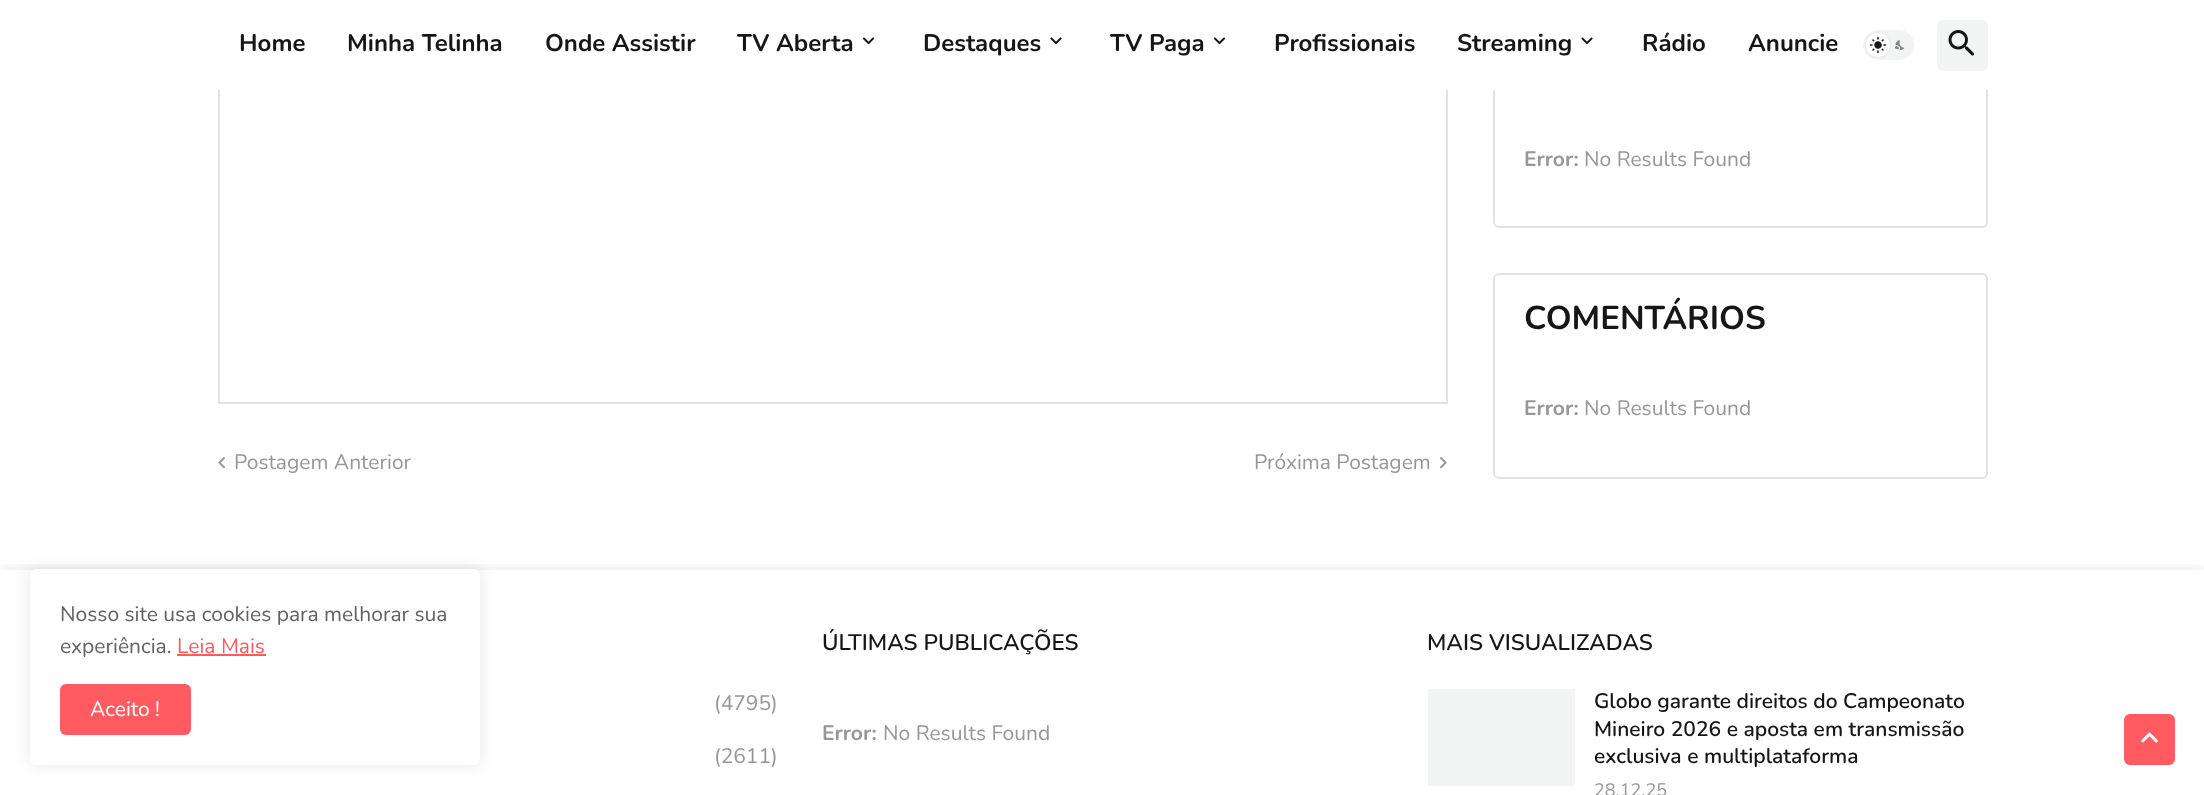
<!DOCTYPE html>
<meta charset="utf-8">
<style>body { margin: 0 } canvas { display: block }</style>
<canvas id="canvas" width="2204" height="795"></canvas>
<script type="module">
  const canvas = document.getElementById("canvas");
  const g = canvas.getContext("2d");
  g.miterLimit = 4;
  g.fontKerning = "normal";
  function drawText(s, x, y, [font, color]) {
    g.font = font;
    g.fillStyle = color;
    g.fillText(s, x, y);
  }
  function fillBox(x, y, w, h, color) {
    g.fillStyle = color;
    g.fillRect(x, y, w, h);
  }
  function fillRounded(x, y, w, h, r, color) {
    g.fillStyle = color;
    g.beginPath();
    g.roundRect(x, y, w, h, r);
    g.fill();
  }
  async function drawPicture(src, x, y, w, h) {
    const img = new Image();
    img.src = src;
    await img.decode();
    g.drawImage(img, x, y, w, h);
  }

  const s1 = ["bold 24px Nunito", "#161618"];
  const s2 = ["bold 21px Nunito", "#979797"];
  const s3 = ["21px Nunito", "#979797"];
  const s4 = ["bold 33px Nunito", "#161618"];
  const s5 = ["21px Nunito", "#626262"];
  const s6 = ["21px Nunito", "#FF5B60"];
  const s7 = ["21px Nunito", "#FFFFFF"];
  const s8 = ["600 22.5px Nunito", "#161618"];
  const s9 = ["600 21px Nunito", "#161618"];
  const s10 = ["18px Nunito", "#979797"];

  fillBox(0, 0, 2204, 795, "#FFFFFF");
  g.beginPath();
  g.roundRect(1494, 25, 493, 202, 5);
  g.strokeStyle = "#E2E2E2";
  g.lineWidth = 2;
  g.stroke();
  g.strokeRect(219, -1, 1228, 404);
  fillBox(218, 0, 1770, 90, "#FFFFFF");
  drawText("Home", 239, 51, s1);
  drawText("Minha Telinha", 347, 51, s1);
  drawText("Onde Assistir", 545, 51, s1);
  drawText("TV Aberta", 737, 51, s1);
  await drawPicture("pic1.png", 862, 37, 13, 8);
  drawText("Destaques", 923, 51, s1);
  await drawPicture("pic2.png", 1050, 37, 12, 7);
  drawText("TV Paga", 1110, 51, s1);
  await drawPicture("pic1.png", 1213, 37, 13, 8);
  drawText("Profissionais", 1274, 51, s1);
  drawText("Streaming", 1457, 51, s1);
  await drawPicture("pic2.png", 1581, 37, 12, 7);
  drawText("Rádio", 1642, 51, s1);
  drawText("Anuncie", 1748, 51, s1);
  fillRounded(1863, 30, 51, 30, 15, "#F3F5F5");
  await drawPicture("pic4.png", 1895, 40, 10, 10);
  g.fillStyle = "rgba(0, 0, 0, 0.1)";
  g.filter = "blur(1.5px)";
  g.beginPath();
  g.roundRect(1866, 33, 24, 24, 12);
  g.fill();
  g.filter = "none";
  g.fillStyle = "#FFFFFF";
  g.beginPath();
  g.arc(1878, 45, 12, 0, Math.PI * 2);
  g.fill();
  await drawPicture("pic3.png", 1869, 36, 18, 18);
  fillRounded(1937, 20, 51, 51, 6, "#F3F5F5");
  await drawPicture("pic5.png", 1948, 30, 26, 26);
  drawText("Error:", 1524, 166, s2);
  drawText("No Results Found", 1584, 166, s3);
  g.beginPath();
  g.roundRect(1494, 274, 493, 204, 5);
  g.stroke();
  drawText("COMENTÁRIOS", 1524, 329, s4);
  drawText("Error:", 1524, 415, s2);
  drawText("No Results Found", 1584, 415, s3);
  await drawPicture("pic6.png", 218, 457, 7, 12);
  drawText("Postagem Anterior", 234, 469, s3);
  drawText("Próxima Postagem", 1254, 469, s3);
  await drawPicture("pic7.png", 1440, 457, 7, 12);
  g.fillStyle = "rgba(0, 0, 0, 0.1)";
  g.filter = "blur(7.5px)";
  g.beginPath();
  g.roundRect(30, 569, 450, 196, 6);
  g.fill();
  g.filter = "none";
  g.save();
  g.beginPath();
  g.rect(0, 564, 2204, 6);
  g.clip();
  g.filter = "blur(7.5px)";
  g.beginPath();
  g.rect(0, 570, 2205, 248);
  g.fill();
  g.filter = "none";
  g.restore();
  fillRounded(30, 569, 450, 196, 6, "#FFFFFF");
  drawText("Nosso site usa cookies para melhorar sua", 60, 621, s5);
  drawText("experiência.", 60, 653, s5);
  drawText("Leia Mais", 177, 653, s6);
  fillBox(177, 654, 89, 2, "#FF5B60");
  fillRounded(60, 684, 131, 51, 6, "#FF5B60");
  drawText("Aceito !", 90, 716, s7);
  drawText("(4795)", 714, 710, s3);
  drawText("(2611)", 714, 763, s3);
  drawText("ÚLTIMAS PUBLICAÇÕES", 822, 650, s8);
  drawText("Error:", 822, 740, s2);
  drawText("No Results Found", 883, 740, s3);
  drawText("MAIS VISUALIZADAS", 1427, 650, s8);
  fillBox(1428, 689, 147, 97, "#F3F5F5");
  drawText("Globo garante direitos do Campeonato", 1594, 708, s9);
  drawText("Mineiro 2026 e aposta em transmissão", 1594, 736, s9);
  drawText("exclusiva e multiplataforma", 1594, 763, s9);
  drawText("28.12.25", 1594, 796, s10);
  fillRounded(2124, 714, 51, 51, 6, "#FF5B60");
  await drawPicture("pic8.png", 2141, 732, 17, 11);
</script>
